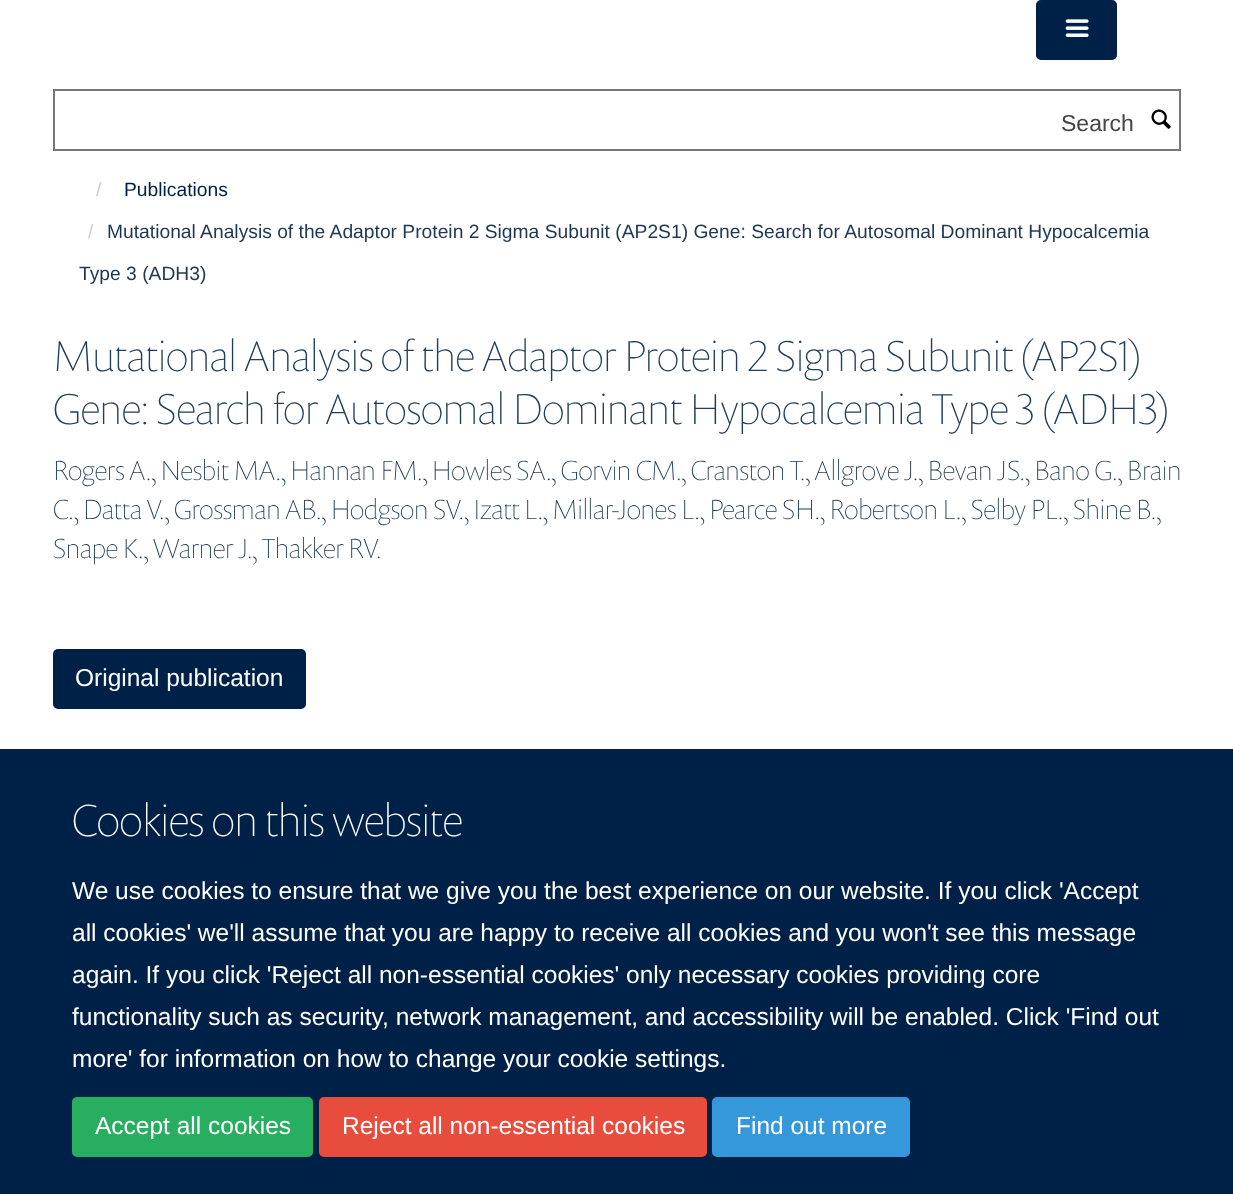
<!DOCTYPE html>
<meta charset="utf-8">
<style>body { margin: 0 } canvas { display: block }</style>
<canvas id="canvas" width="1233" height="1194"></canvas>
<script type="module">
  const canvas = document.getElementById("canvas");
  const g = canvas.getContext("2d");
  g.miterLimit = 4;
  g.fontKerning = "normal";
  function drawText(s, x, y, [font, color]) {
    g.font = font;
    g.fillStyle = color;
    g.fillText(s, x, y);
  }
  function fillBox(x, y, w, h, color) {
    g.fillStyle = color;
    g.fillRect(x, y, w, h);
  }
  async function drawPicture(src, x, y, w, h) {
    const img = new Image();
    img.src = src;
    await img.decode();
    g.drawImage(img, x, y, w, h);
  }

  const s1 = ["23px Liberation Sans", "#444444"];
  const s2 = ["19.25px Liberation Sans", "#CCCCCC"];
  const s3 = ["19.25px Liberation Sans", "#002147"];
  const s4 = ["19.25px Liberation Sans", "#1D3850"];
  const s5 = ["100 43.75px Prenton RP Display", "#203E58"];
  const s6 = ["100 28px Prenton RP Display", "#203E58"];
  const s7 = ["24.5px Liberation Sans", "#FFFFFF"];
  const s8 = ["100 45.5px Prenton RP Display", "#FFFFFF"];

  fillBox(0, 0, 1233, 1194, "#FFFFFF");
  g.fillStyle = "#002147";
  g.beginPath();
  g.roundRect(1037, 1, 79, 58, 4);
  g.fill();
  g.strokeStyle = "#002147";
  g.lineWidth = 2;
  g.stroke();
  await drawPicture("pic1.png", 1065, 19, 24, 18);
  g.strokeStyle = "#777777";
  g.strokeRect(54, 90, 1126, 60);
  drawText("Search", 1061, 131, s1);
  await drawPicture("pic2.png", 1151, 109, 20, 20);
  drawText("/", 96, 196, s2);
  drawText("Publications", 124, 196, s3);
  drawText("/", 88, 238, s2);
  drawText("Mutational Analysis of the Adaptor Protein 2 Sigma Subunit (AP2S1) Gene: Search for Autosomal Dominant Hypocalcemia", 107, 238, s4);
  drawText("Type 3 (ADH3)", 79, 280, s4);
  drawText("Mutational Analysis of the Adaptor Protein 2 Sigma Subunit (AP2S1)", 53, 371, s5);
  drawText("Gene: Search for Autosomal Dominant Hypocalcemia Type 3 (ADH3)", 53, 424, s5);
  drawText("Rogers A., Nesbit MA., Hannan FM., Howles SA., Gorvin CM., Cranston T., Allgrove J., Bevan JS., Bano G., Brain", 53, 480, s6);
  drawText("C., Datta V., Grossman AB., Hodgson SV., Izatt L., Millar-Jones L., Pearce SH., Robertson L., Selby PL., Shine B.,", 53, 519, s6);
  drawText("Snape K., Warner J., Thakker RV.", 53, 558, s6);
  g.fillStyle = "#002147";
  g.beginPath();
  g.roundRect(54, 650, 251, 58, 4);
  g.fill();
  g.strokeStyle = "#002147";
  g.stroke();
  drawText("Original publication", 75, 686, s7);
  fillBox(0, 749, 1233, 445, "#002147");
  drawText("Cookies on this website", 72, 836, s8);
  drawText("We use cookies to ensure that we give you the best experience on our website. If you click 'Accept", 72, 899, s7);
  drawText("all cookies' we'll assume that you are happy to receive all cookies and you won't see this message", 72, 941, s7);
  drawText("again. If you click 'Reject all non-essential cookies' only necessary cookies providing core", 72, 983, s7);
  drawText("functionality such as security, network management, and accessibility will be enabled. Click 'Find out", 72, 1025, s7);
  drawText("more' for information on how to change your cookie settings.", 72, 1067, s7);
  g.fillStyle = "#27AE60";
  g.beginPath();
  g.roundRect(73, 1098, 239, 58, 4);
  g.fill();
  g.strokeStyle = "#27AE60";
  g.stroke();
  drawText("Accept all cookies", 95, 1134, s7);
  g.fillStyle = "#E74C3C";
  g.beginPath();
  g.roundRect(320, 1098, 386, 58, 4);
  g.fill();
  g.strokeStyle = "#E74C3C";
  g.stroke();
  drawText("Reject all non-essential cookies", 342, 1134, s7);
  g.fillStyle = "#3498DB";
  g.beginPath();
  g.roundRect(713, 1098, 196, 58, 4);
  g.fill();
  g.strokeStyle = "#3498DB";
  g.stroke();
  drawText("Find out more", 736, 1134, s7);
</script>
